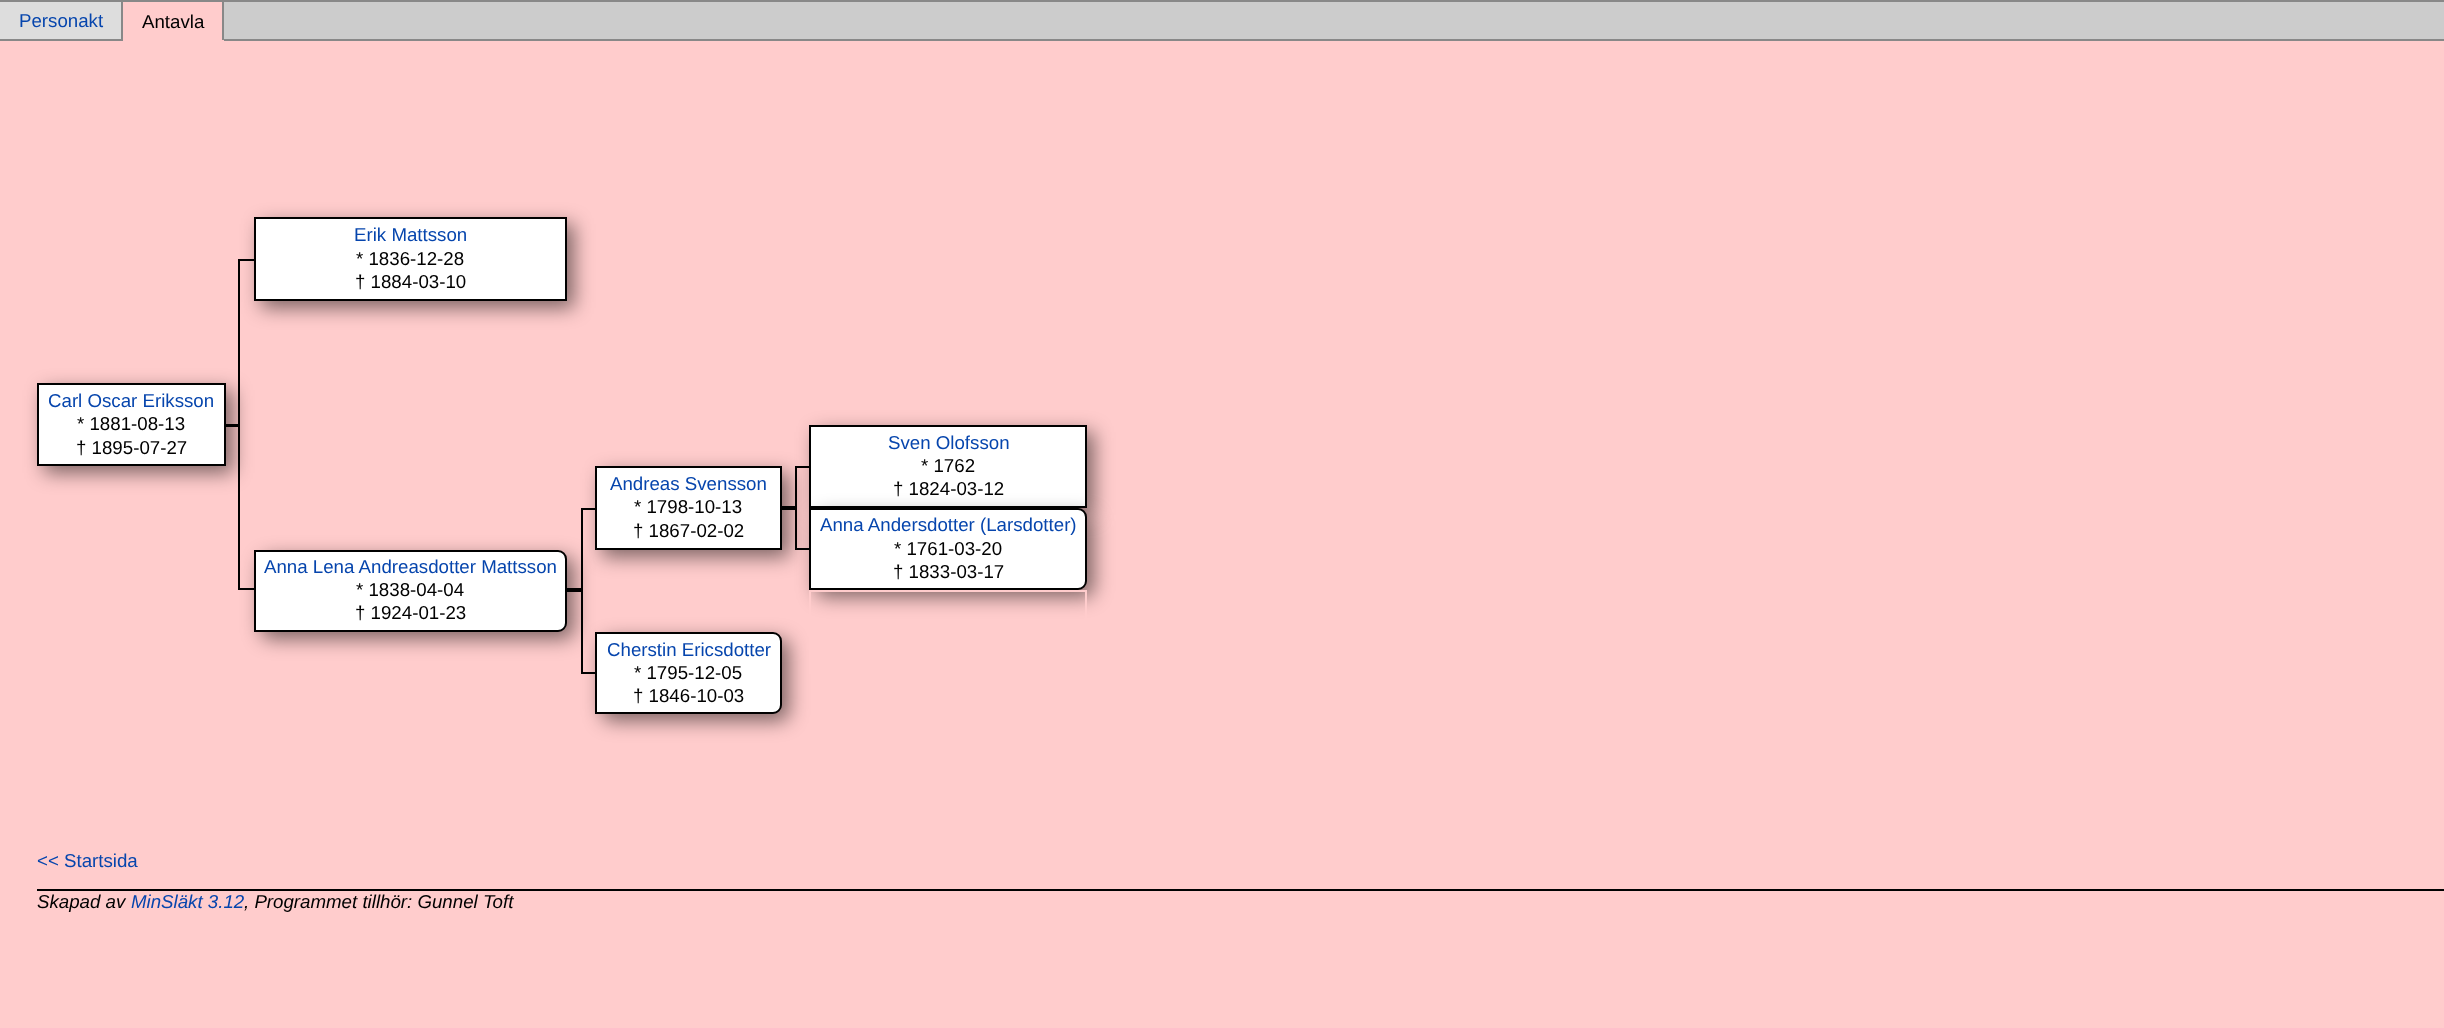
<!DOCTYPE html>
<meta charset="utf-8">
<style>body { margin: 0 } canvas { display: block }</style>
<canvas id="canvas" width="2444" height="1028"></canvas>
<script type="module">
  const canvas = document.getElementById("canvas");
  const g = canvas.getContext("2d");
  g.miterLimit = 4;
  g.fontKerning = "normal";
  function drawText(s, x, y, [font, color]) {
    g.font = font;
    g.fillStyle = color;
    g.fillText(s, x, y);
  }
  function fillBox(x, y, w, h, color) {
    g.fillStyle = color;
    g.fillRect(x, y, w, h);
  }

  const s1 = ["18.7px Liberation Sans", "#0645AD"];
  const s2 = ["18.7px Liberation Sans", "#000000"];
  const s3 = ["italic 18.7px Liberation Sans", "#000000"];
  const s4 = ["italic 18.7px Liberation Sans", "#0645AD"];

  fillBox(0, 0, 2444, 1028, "#FFCCCC");
  fillBox(0, 2, 121, 37, "#DDDDDD");
  fillBox(0, 0, 2444, 2, "#888888");
  fillBox(121, 0, 2, 40, "#888888");
  fillBox(0, 39, 123, 2, "#888888");
  drawText("Personakt", 19, 27, s1);
  fillBox(222, 0, 2, 40, "#888888");
  drawText("Antavla", 142, 28, s2);
  fillBox(224, 2, 2220, 37, "#CCCCCC");
  fillBox(224, 39, 2220, 2, "#888888");
  g.fillStyle = "rgba(0, 0, 0, 0.5)";
  g.filter = "blur(9.5px)";
  g.beginPath();
  g.rect(261, 224, 313, 84);
  g.fill();
  g.filter = "none";
  g.fillStyle = "#FFFFFF";
  g.beginPath();
  g.rect(255, 218, 311, 82);
  g.fill();
  g.strokeStyle = "#000000";
  g.lineWidth = 2;
  g.stroke();
  drawText("Erik Mattsson", 354, 241, s1);
  drawText("* 1836-12-28", 356, 265, s2);
  drawText("† 1884-03-10", 355, 288, s2);
  g.fillStyle = "rgba(0, 0, 0, 0.5)";
  g.filter = "blur(9.5px)";
  g.beginPath();
  g.rect(44, 390, 189, 83);
  g.fill();
  g.filter = "none";
  g.fillStyle = "#FFFFFF";
  g.beginPath();
  g.rect(38, 384, 187, 81);
  g.fill();
  g.stroke();
  drawText("Carl Oscar Eriksson", 48, 407, s1);
  drawText("* 1881-08-13", 77, 430, s2);
  drawText("† 1895-07-27", 76, 454, s2);
  fillBox(226, 424, 12, 3, "#000000");
  fillBox(238, 259, 16, 2, "#000000");
  fillBox(238, 259, 2, 166, "#000000");
  fillBox(238, 588, 16, 2, "#000000");
  fillBox(238, 425, 2, 165, "#000000");
  g.fillStyle = "rgba(0, 0, 0, 0.5)";
  g.filter = "blur(9.5px)";
  g.beginPath();
  g.rect(602, 473, 187, 84);
  g.fill();
  g.filter = "none";
  fillBox(782, 506, 13, 2, "#000000");
  g.fillStyle = "rgba(0, 0, 0, 0.5)";
  g.filter = "blur(9.5px)";
  g.beginPath();
  g.rect(816, 432, 278, 83);
  g.fill();
  g.filter = "none";
  g.fillStyle = "#FFFFFF";
  g.beginPath();
  g.rect(810, 426, 276, 81);
  g.fill();
  g.stroke();
  drawText("Sven Olofsson", 888, 449, s1);
  drawText("* 1762", 921, 472, s2);
  fillBox(795, 466, 14, 2, "#000000");
  fillBox(795, 466, 2, 42, "#000000");
  fillBox(782, 508, 13, 2, "#000000");
  fillBox(795, 548, 14, 2, "#000000");
  fillBox(795, 508, 2, 42, "#000000");
  g.fillStyle = "rgba(0, 0, 0, 0.5)";
  g.filter = "blur(9.5px)";
  g.beginPath();
  g.roundRect(816, 515, 278, 82, 9);
  g.fill();
  g.filter = "none";
  drawText("† 1824-03-12", 893, 495, s2);
  g.fillStyle = "rgba(0, 0, 0, 0.5)";
  g.filter = "blur(9.5px)";
  g.beginPath();
  g.roundRect(261, 557, 313, 82, 9);
  g.fill();
  g.filter = "none";
  g.fillStyle = "#FFFFFF";
  g.beginPath();
  g.rect(596, 467, 185, 82);
  g.fill();
  g.stroke();
  drawText("Andreas Svensson", 610, 490, s1);
  drawText("* 1798-10-13", 634, 513, s2);
  drawText("† 1867-02-02", 633, 537, s2);
  g.fillStyle = "#FFFFFF";
  g.beginPath();
  g.roundRect(255, 551, 311, 80, [0, 8, 8, 0]);
  g.fill();
  g.stroke();
  drawText("Anna Lena Andreasdotter Mattsson", 264, 573, s1);
  drawText("* 1838-04-04", 356, 596, s2);
  drawText("† 1924-01-23", 355, 619, s2);
  fillBox(567, 588, 14, 4, "#000000");
  fillBox(581, 508, 14, 2, "#000000");
  fillBox(581, 508, 2, 82, "#000000");
  g.fillStyle = "#FFFFFF";
  g.beginPath();
  g.roundRect(810, 509, 276, 80, [0, 8, 8, 0]);
  g.fill();
  g.stroke();
  drawText("Anna Andersdotter (Larsdotter)", 820, 531, s1);
  drawText("* 1761-03-20", 894, 555, s2);
  drawText("† 1833-03-17", 893, 578, s2);
  fillBox(581, 672, 14, 2, "#000000");
  fillBox(581, 590, 2, 84, "#000000");
  g.fillStyle = "rgba(0, 0, 0, 0.5)";
  g.filter = "blur(9.5px)";
  g.beginPath();
  g.roundRect(602, 639, 187, 82, 9);
  g.fill();
  g.filter = "none";
  g.fillStyle = "#FFFFFF";
  g.beginPath();
  g.roundRect(596, 633, 185, 80, [0, 8, 8, 0]);
  g.fill();
  g.stroke();
  drawText("Cherstin Ericsdotter", 607, 656, s1);
  drawText("* 1795-12-05", 634, 679, s2);
  drawText("† 1846-10-03", 633, 702, s2);
  g.strokeStyle = "#FFCCCC";
  g.strokeRect(810, 591, 276, 82);
  drawText("<< Startsida", 37, 867, s1);
  fillBox(37, 889, 2407, 2, "#000000");
  drawText("Skapad av", 37, 908, s3);
  drawText("MinSläkt 3.12", 131, 908, s4);
  drawText(", Programmet tillhör: Gunnel Toft", 244, 908, s3);
</script>
